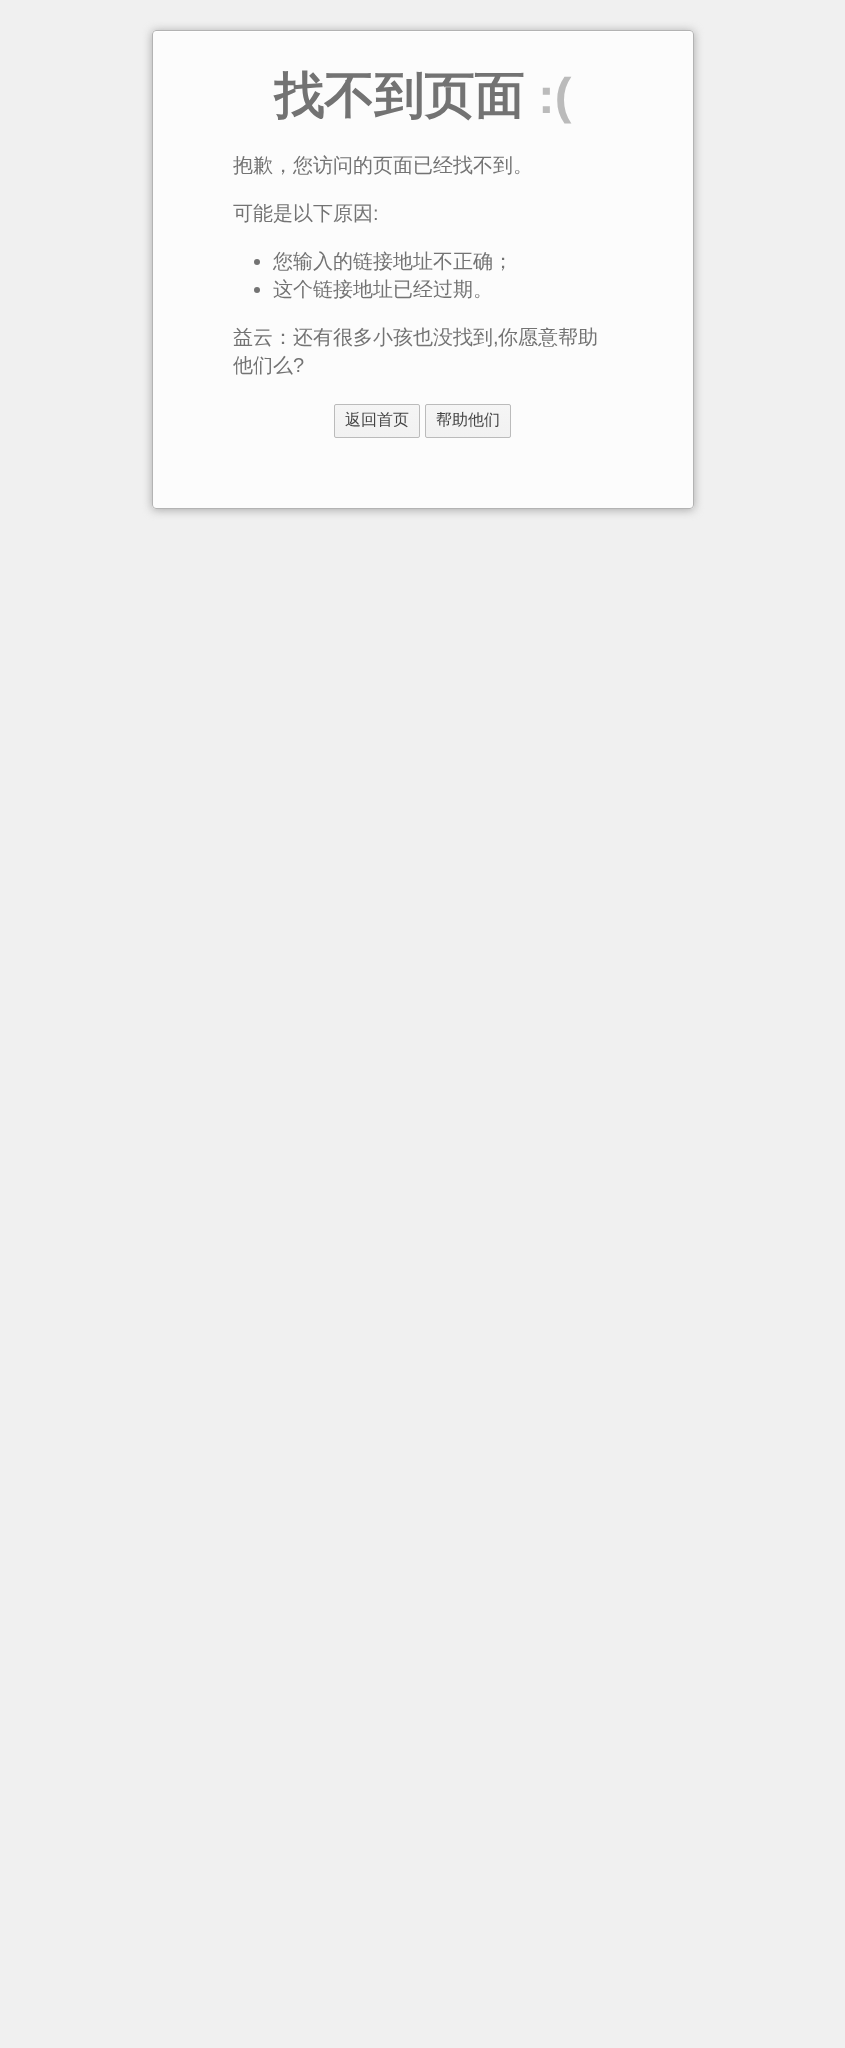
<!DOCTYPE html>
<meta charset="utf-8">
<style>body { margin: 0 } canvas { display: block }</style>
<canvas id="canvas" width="845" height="2048"></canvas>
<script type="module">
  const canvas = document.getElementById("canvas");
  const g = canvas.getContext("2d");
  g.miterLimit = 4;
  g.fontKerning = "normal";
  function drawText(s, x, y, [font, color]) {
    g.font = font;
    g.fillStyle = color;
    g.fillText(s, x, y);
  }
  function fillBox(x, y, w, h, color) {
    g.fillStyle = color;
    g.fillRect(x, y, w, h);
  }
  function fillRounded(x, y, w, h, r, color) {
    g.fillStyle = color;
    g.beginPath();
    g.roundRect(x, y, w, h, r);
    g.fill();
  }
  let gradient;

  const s1 = ["bold 50px WenQuanYi Zen Hei", "#737373"];
  const s2 = ["bold 50px Liberation Sans", "#BBBBBB"];
  const s3 = ["500 20px WenQuanYi Zen Hei", "#737373"];
  const s4 = ["20px Liberation Sans", "#737373"];
  const s5 = ["500 16px WenQuanYi Zen Hei", "#444444"];

  fillBox(0, 0, 845, 2048, "#F0F0F0");
  g.fillStyle = "#A7A7A7";
  g.filter = "blur(5px)";
  g.beginPath();
  g.roundRect(152, 31, 542, 479, 4);
  g.fill();
  g.filter = "none";
  fillRounded(152, 30, 542, 479, 4, "#FCFCFC");
  g.fillStyle = "#FFFFFF";
  g.beginPath();
  g.moveTo(156, 32);
  g.lineTo(690, 32);
  g.bezierCurveTo(692, 32, 693, 33, 693, 35);
  g.lineTo(693, 34);
  g.bezierCurveTo(693, 32, 692, 31, 690, 31);
  g.lineTo(156, 31);
  g.bezierCurveTo(154, 31, 153, 32, 153, 34);
  g.lineTo(153, 35);
  g.bezierCurveTo(153, 33, 154, 32, 156, 32);
  g.closePath();
  g.fill();
  g.beginPath();
  g.roundRect(152.5, 30.5, 541, 478, 3.5);
  g.strokeStyle = "#B3B3B3";
  g.stroke();
  drawText("找不到页面", 274, 113, s1);
  drawText(":(", 538, 113, s2);
  drawText("抱歉，您访问的页面已经找不到。", 233, 172, s3);
  drawText("可能是以下原因", 233, 220, s3);
  drawText(":", 373, 220, s4);
  g.beginPath();
  g.arc(257, 262, 3, 0, Math.PI * 2);
  g.fill();
  drawText("您输入的链接地址不正确；", 273, 268, s3);
  g.beginPath();
  g.arc(257, 290, 3, 0, Math.PI * 2);
  g.fill();
  drawText("这个链接地址已经过期。", 273, 296, s3);
  drawText("益云：还有很多小孩也没找到", 233, 344, s3);
  drawText(",", 493, 344, s4);
  drawText("你愿意帮助", 498, 344, s3);
  drawText("他们么", 233, 372, s3);
  drawText("?", 293, 372, s4);
  g.save();
  g.beginPath();
  g.roundRect(334, 404, 86, 34, 2);
  g.clip();
  gradient = g.createLinearGradient(377, 405, 377, 437);
  gradient.addColorStop(0, "#F5F5F5");
  gradient.addColorStop(1, "#F1F1F1");
  g.fillStyle = gradient;
  g.fillRect(334, 405, 86, 32);
  g.restore();
  g.beginPath();
  g.roundRect(334.5, 404.5, 85, 33, 1.5);
  g.strokeStyle = "#BBBBBB";
  g.stroke();
  drawText("返回首页", 345, 425, s5);
  g.save();
  g.beginPath();
  g.roundRect(425, 404, 86, 34, 2);
  g.clip();
  gradient = g.createLinearGradient(468, 405, 468, 437);
  gradient.addColorStop(0, "#F5F5F5");
  gradient.addColorStop(1, "#F1F1F1");
  g.fillStyle = gradient;
  g.fillRect(425, 405, 86, 32);
  g.restore();
  g.beginPath();
  g.roundRect(425.5, 404.5, 85, 33, 1.5);
  g.stroke();
  drawText("帮助他们", 436, 425, s5);
</script>
